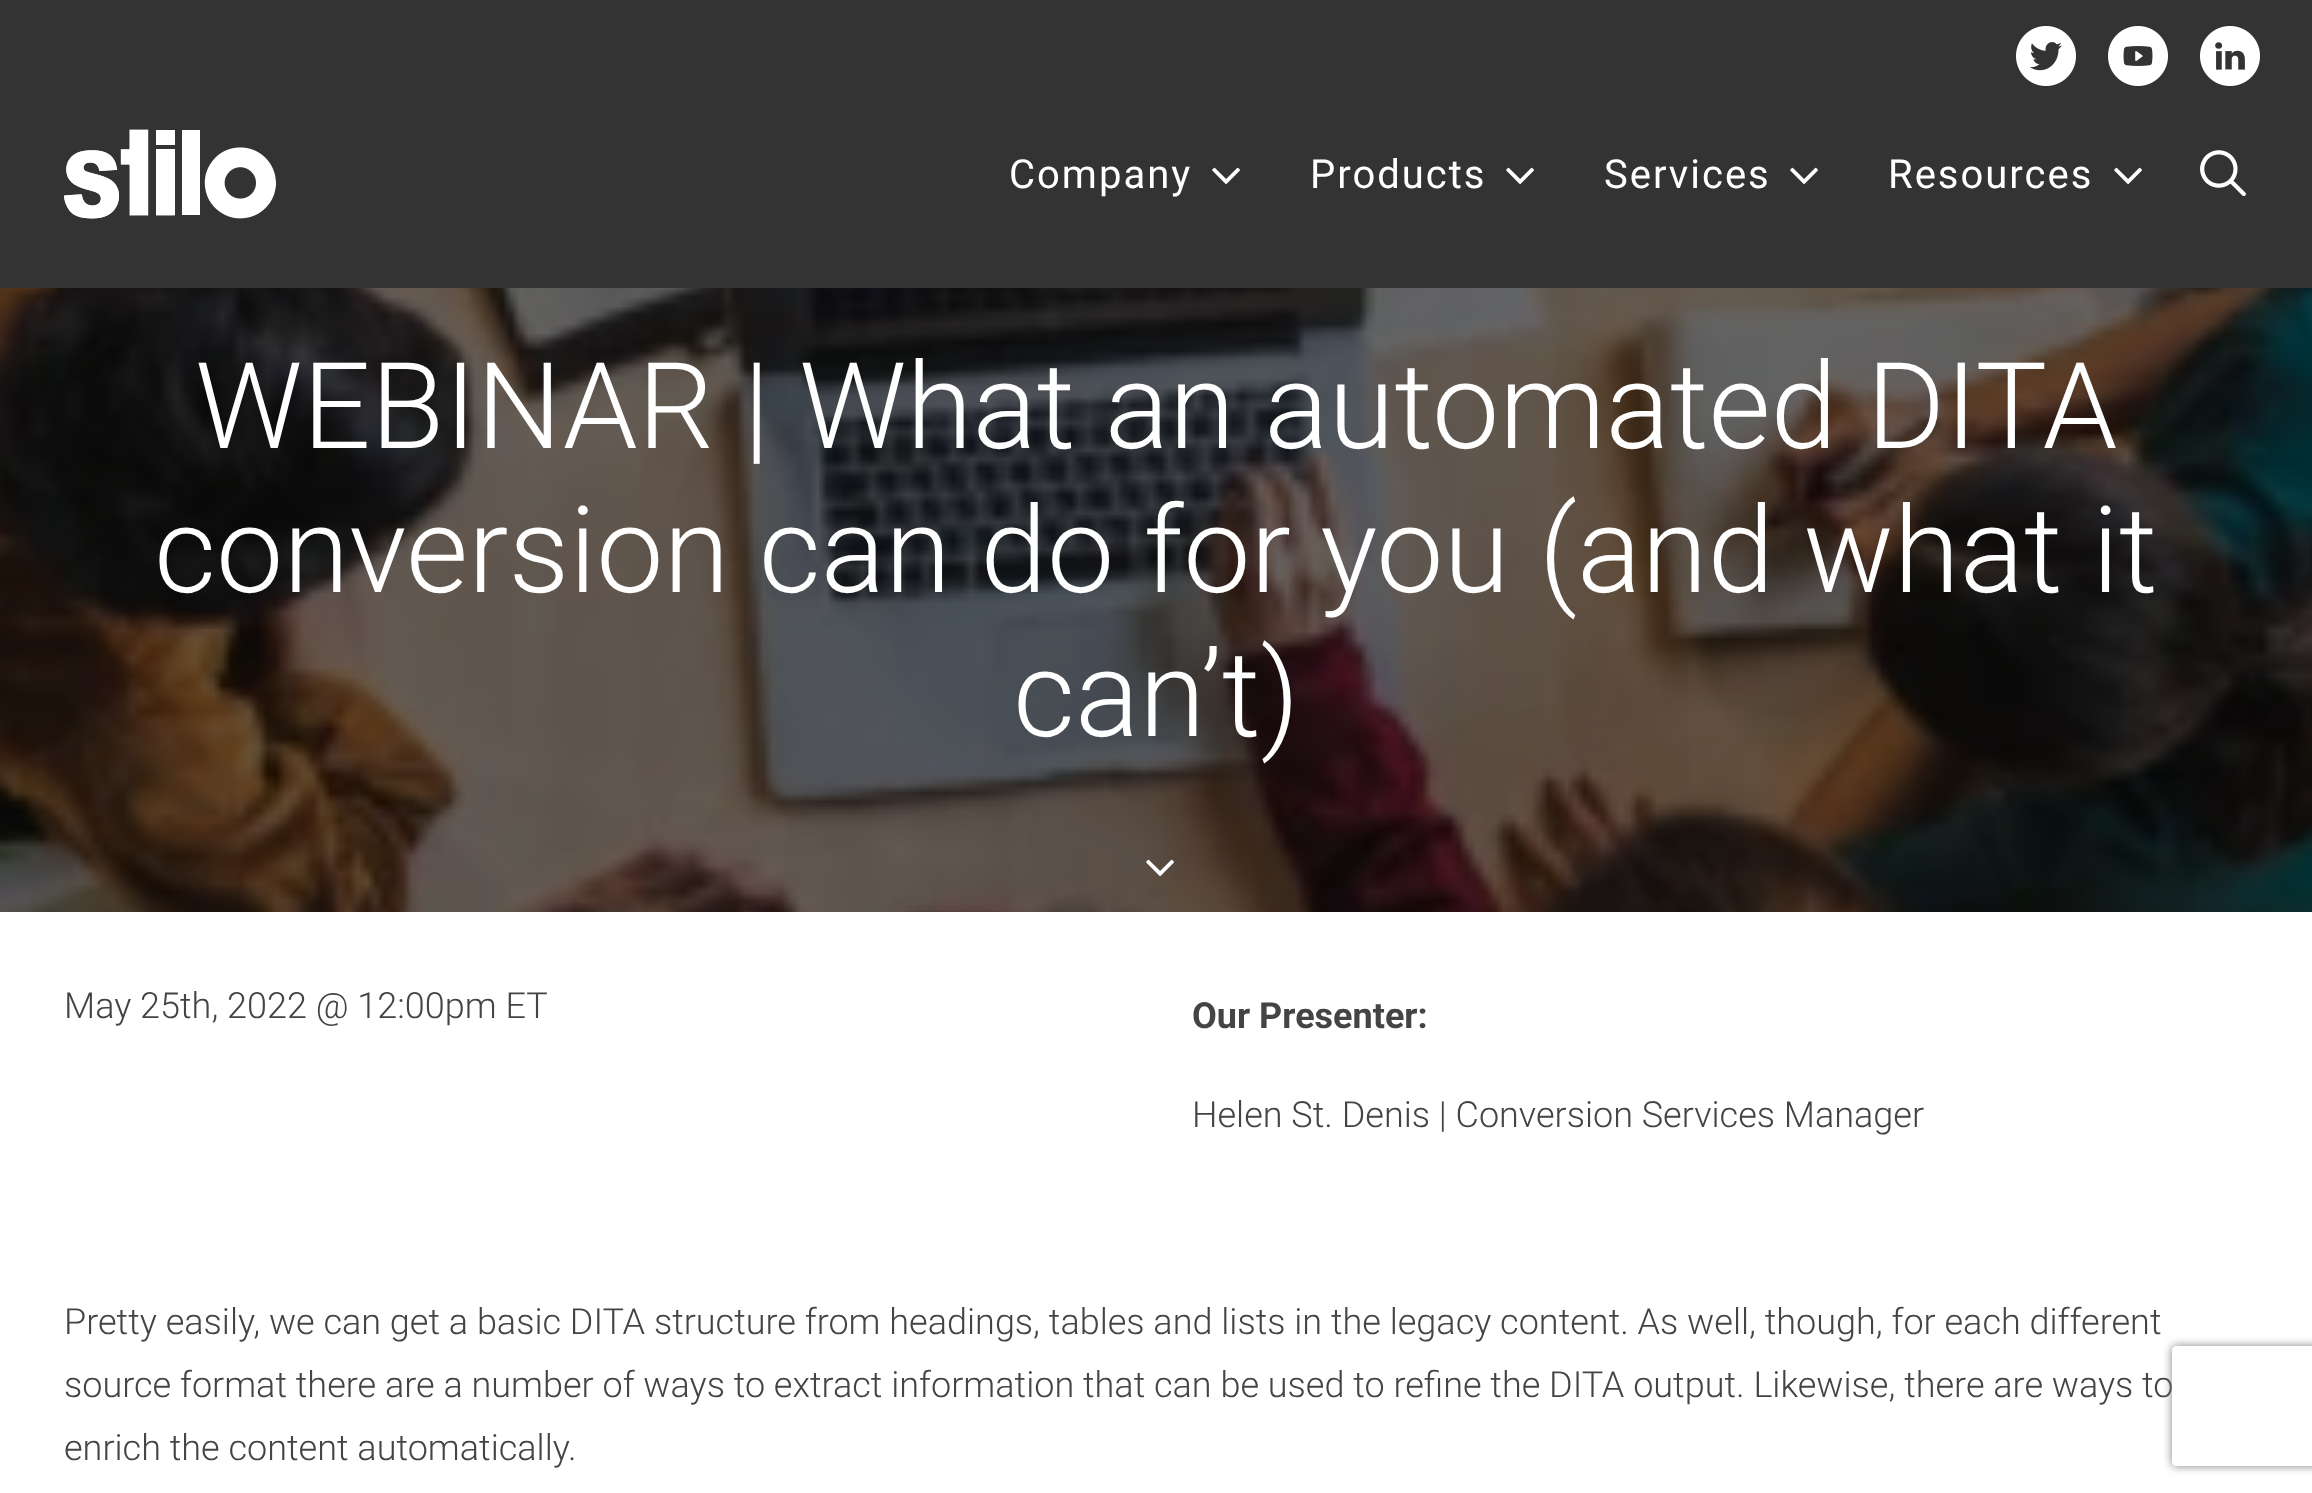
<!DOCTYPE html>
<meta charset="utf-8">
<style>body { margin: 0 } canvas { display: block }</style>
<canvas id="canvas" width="2312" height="1493"></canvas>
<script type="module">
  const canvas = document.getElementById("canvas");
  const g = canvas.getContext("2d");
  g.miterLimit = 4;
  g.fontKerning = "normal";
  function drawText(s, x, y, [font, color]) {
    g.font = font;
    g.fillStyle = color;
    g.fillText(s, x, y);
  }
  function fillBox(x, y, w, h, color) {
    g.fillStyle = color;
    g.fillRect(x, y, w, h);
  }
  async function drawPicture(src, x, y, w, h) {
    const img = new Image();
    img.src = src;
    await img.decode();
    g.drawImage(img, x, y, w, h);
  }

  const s1 = ["40px Roboto", "#FFFFFF"];
  const s2 = ["300 120px Roboto", "#FFFFFF"];
  const s3 = ["300 36px Roboto", "#444444"];
  const s4 = ["bold 36px Roboto", "#444444"];

  fillBox(0, 0, 2312, 1493, "#FFFFFF");
  fillBox(0, 0, 2312, 288, "#333333");
  await drawPicture("pic1.png", 2016, 26, 60, 60);
  await drawPicture("pic2.png", 2108, 26, 60, 60);
  await drawPicture("pic3.png", 2200, 26, 60, 60);
  await drawPicture("pic4.png", 64, 129, 212, 90);
  g.letterSpacing = "2px";
  drawText("Company", 1009, 188, s1);
  await drawPicture("pic5.png", 1212, 167, 28, 17);
  drawText("Products", 1310, 188, s1);
  await drawPicture("pic5.png", 1506, 167, 28, 17);
  drawText("Services", 1604, 188, s1);
  await drawPicture("pic5.png", 1790, 167, 28, 17);
  drawText("Resources", 1888, 188, s1);
  await drawPicture("pic5.png", 2114, 167, 28, 17);
  await drawPicture("pic6.png", 2200, 150, 46, 46);
  await drawPicture("pic7.png", 0, 288, 2312, 624);
  g.letterSpacing = "0px";
  drawText("WEBINAR | What an automated DITA", 195, 448, s2);
  drawText("conversion can do for you (and what it", 154, 592, s2);
  drawText("can’t)", 1013, 736, s2);
  await drawPicture("pic8.png", 1146, 859, 28, 17);
  drawText("May 25th, 2022 @ 12:00pm ET", 64, 1018, s3);
  drawText("Our Presenter:", 1192, 1028, s4);
  drawText("Helen St. Denis | Conversion Services Manager", 1192, 1127, s3);
  drawText("Pretty easily, we can get a basic DITA structure from headings, tables and lists in the legacy content. As well, though, for each different", 64, 1334, s3);
  drawText("source format there are a number of ways to extract information that can be used to refine the DITA output. Likewise, there are ways to", 64, 1397, s3);
  drawText("enrich the content automatically.", 64, 1460, s3);
  g.save();
  g.beginPath();
  g.moveTo(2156, 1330);
  g.lineTo(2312, 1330);
  g.lineTo(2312, 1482);
  g.lineTo(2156, 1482);
  g.closePath();
  g.moveTo(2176, 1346);
  g.lineTo(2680, 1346);
  g.bezierCurveTo(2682, 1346, 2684, 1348, 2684, 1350);
  g.lineTo(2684, 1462);
  g.bezierCurveTo(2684, 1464, 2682, 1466, 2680, 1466);
  g.lineTo(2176, 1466);
  g.bezierCurveTo(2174, 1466, 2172, 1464, 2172, 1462);
  g.lineTo(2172, 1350);
  g.bezierCurveTo(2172, 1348, 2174, 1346, 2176, 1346);
  g.closePath();
  g.clip("evenodd");
  g.fillStyle = "#808080";
  g.filter = "blur(5px)";
  g.beginPath();
  g.roundRect(2172, 1346, 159, 120, 4);
  g.fill();
  g.filter = "none";
  g.restore();
</script>
